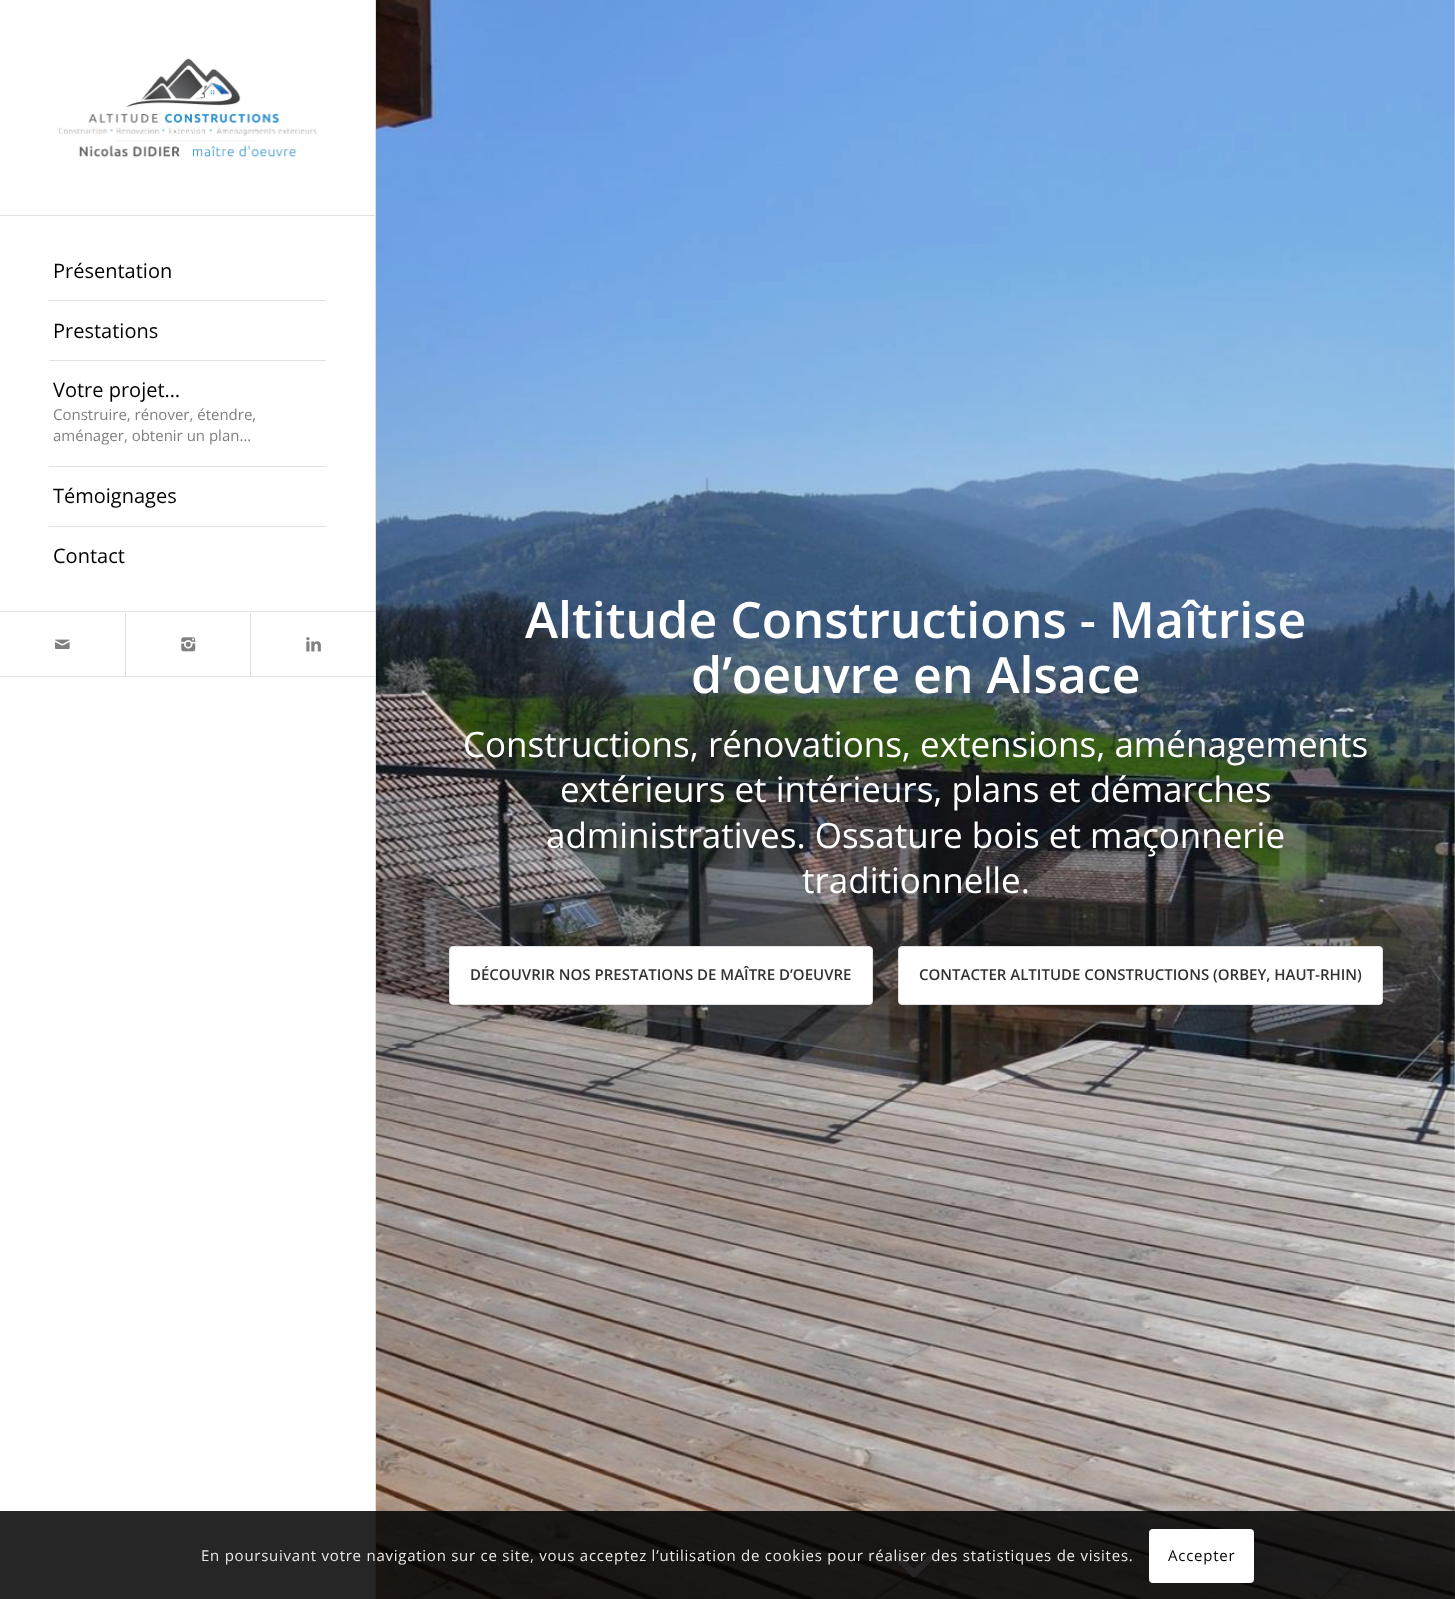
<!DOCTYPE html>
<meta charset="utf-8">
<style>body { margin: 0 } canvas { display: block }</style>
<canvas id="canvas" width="1455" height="1599"></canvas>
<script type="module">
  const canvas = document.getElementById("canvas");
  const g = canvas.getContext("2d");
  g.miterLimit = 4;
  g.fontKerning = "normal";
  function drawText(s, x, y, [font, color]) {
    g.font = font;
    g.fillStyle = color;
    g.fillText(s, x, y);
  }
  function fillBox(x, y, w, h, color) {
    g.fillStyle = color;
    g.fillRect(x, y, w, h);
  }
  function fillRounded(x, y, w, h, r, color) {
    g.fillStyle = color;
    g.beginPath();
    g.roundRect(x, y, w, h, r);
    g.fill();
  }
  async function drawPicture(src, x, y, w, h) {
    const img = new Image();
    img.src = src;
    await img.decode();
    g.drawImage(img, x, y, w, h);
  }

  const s1 = ["20px Open Sans", "#000000"];
  const s2 = ["15px Open Sans", "#808080"];
  const s3 = ["600 50px Open Sans", "#FFFFFF"];
  const s4 = ["35px Open Sans", "#FFFFFF"];
  const s5 = ["600 15px Open Sans", "#333333"];
  const s6 = ["15px Open Sans", "#E8E8E8"];
  const s7 = ["15px Open Sans", "#000000"];

  fillBox(0, 0, 1455, 1599, "#FFFFFF");
  fillBox(0, 676, 375, 1, "#E1E1E1");
  fillBox(0, 215, 375, 1, "#E1E1E1");
  await drawPicture("pic1.png", 58, 58, 259, 100);
  fillBox(49, 300, 277, 1, "#E1E1E1");
  drawText("Présentation", 53, 278, s1);
  fillBox(49, 360, 277, 1, "#E1E1E1");
  drawText("Prestations", 53, 338, s1);
  fillBox(49, 466, 277, 1, "#E1E1E1");
  drawText("Votre projet…", 53, 397, s1);
  drawText("Construire, rénover, étendre,", 53, 420, s2);
  drawText("aménager, obtenir un plan…", 53, 441, s2);
  fillBox(49, 526, 277, 1, "#E1E1E1");
  drawText("Témoignages", 53, 503, s1);
  drawText("Contact", 53, 563, s1);
  fillBox(0, 611, 375, 1, "#E1E1E1");
  await drawPicture("pic2.png", 55, 639, 15, 10);
  fillBox(125, 613, 1, 63, "#E1E1E1");
  await drawPicture("pic3.png", 181, 637, 15, 15);
  fillBox(250, 613, 1, 63, "#E1E1E1");
  await drawPicture("pic4.png", 306, 637, 15, 15);
  fillBox(375, 0, 1, 1599, "#E1E1E1");
  await drawPicture("pic5.png", 376, 0, 1079, 1599);
  drawText("Altitude Constructions - Maîtrise", 525, 638, s3);
  drawText("d’oeuvre en Alsace", 691, 693, s3);
  drawText("Constructions, rénovations, extensions, aménagements", 463, 757, s4);
  drawText("extérieurs et intérieurs, plans et démarches", 560, 802, s4);
  drawText("administratives. Ossature bois et maçonnerie", 546, 848, s4);
  drawText("traditionnelle.", 802, 893, s4);
  g.beginPath();
  g.roundRect(449.5, 946.5, 423, 58, 3.5);
  g.fill();
  g.strokeStyle = "#E1E1E1";
  g.stroke();
  drawText("DÉCOUVRIR NOS PRESTATIONS DE MAÎTRE D’OEUVRE", 470, 980, s5);
  g.fillStyle = "#FFFFFF";
  g.beginPath();
  g.roundRect(898.5, 946.5, 484, 58, 3.5);
  g.fill();
  g.stroke();
  drawText("CONTACTER ALTITUDE CONSTRUCTIONS (ORBEY, HAUT-RHIN)", 919, 980, s5);
  await drawPicture("pic6.png", 893, 1554, 42, 24);
  fillBox(0, 1511, 1455, 88, "rgba(0, 0, 0, 0.85)");
  g.letterSpacing = "0.75px";
  drawText("En poursuivant votre navigation sur ce site, vous acceptez l’utilisation de cookies pour réaliser des statistiques de visites.", 201, 1561, s6);
  fillRounded(1149, 1529, 105, 54, 4, "#FFFFFF");
  drawText("Accepter", 1168, 1561, s7);
</script>
